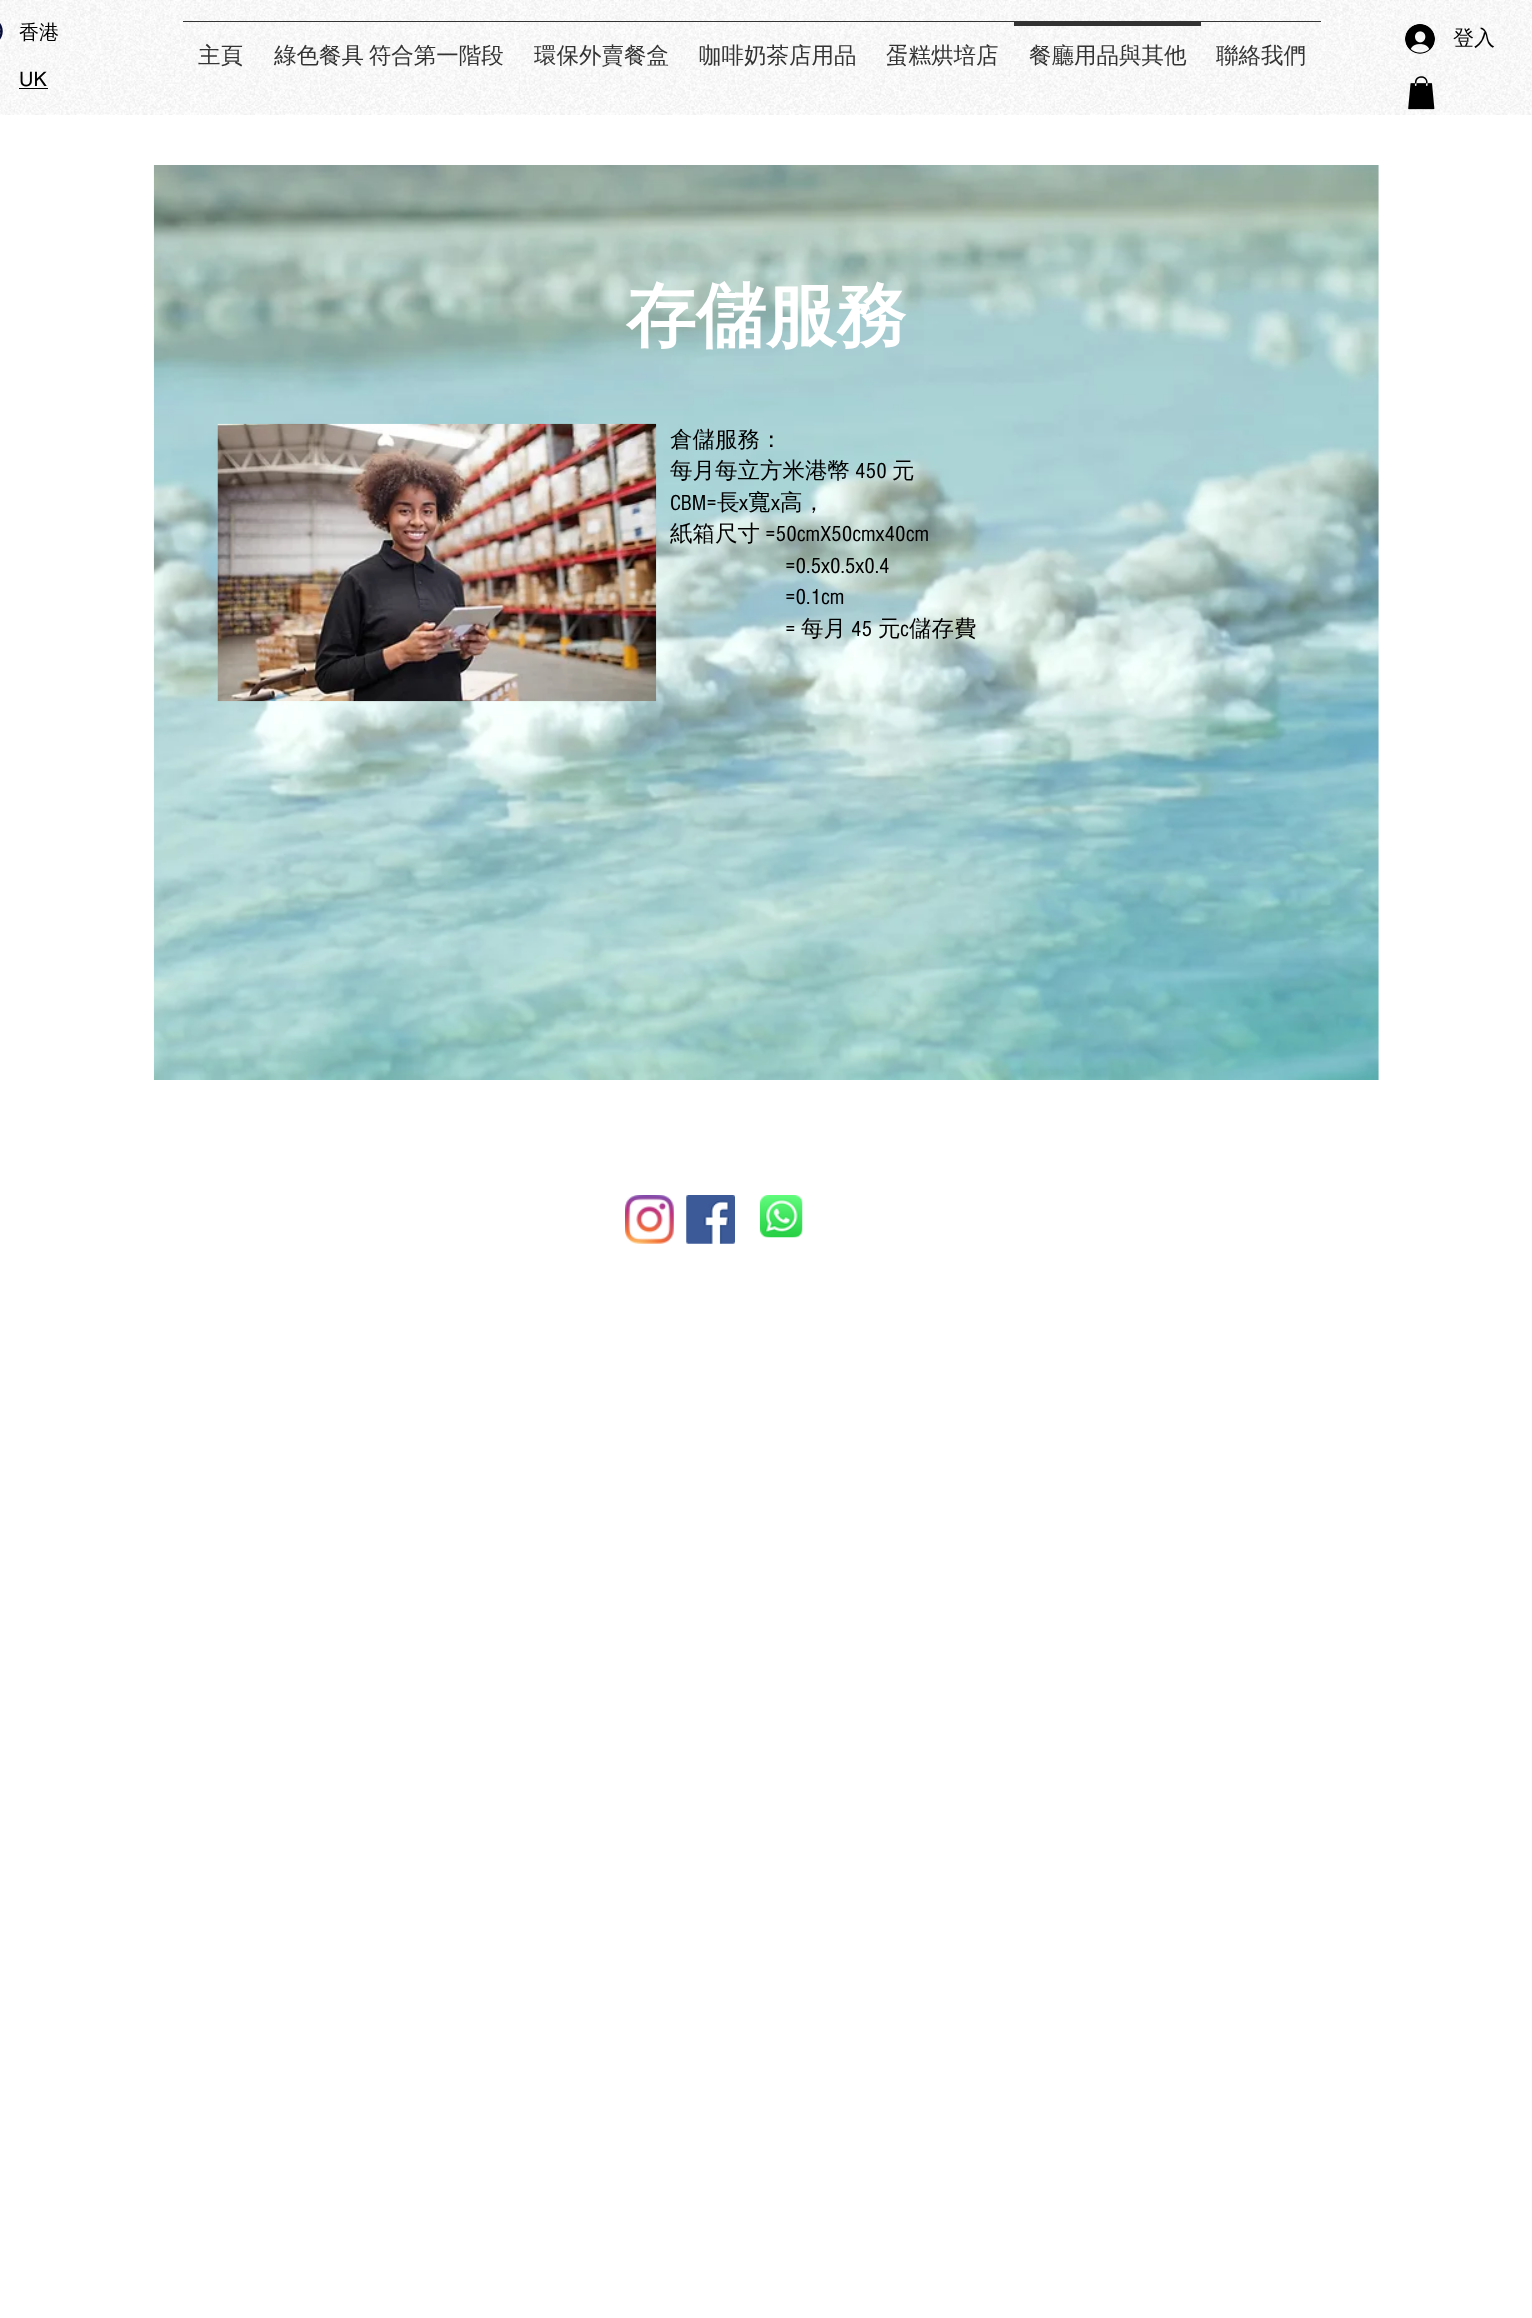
<!DOCTYPE html>
<meta charset="utf-8">
<style>body { margin: 0 } canvas { display: block }</style>
<canvas id="canvas" width="1532" height="2318"></canvas>
<script type="module">
  const canvas = document.getElementById("canvas");
  const g = canvas.getContext("2d");
  g.miterLimit = 4;
  g.fontKerning = "normal";
  function drawText(s, x, y, [font, color]) {
    g.font = font;
    g.fillStyle = color;
    g.fillText(s, x, y);
  }
  function fillBox(x, y, w, h, color) {
    g.fillStyle = color;
    g.fillRect(x, y, w, h);
  }
  async function drawPicture(src, x, y, w, h) {
    const img = new Image();
    img.src = src;
    await img.decode();
    g.drawImage(img, x, y, w, h);
  }

  const s1 = ["500 20px WenQuanYi Zen Hei", "#000000"];
  const s2 = ["500 21px WenQuanYi Zen Hei", "#000000"];
  const s3 = ["500 22.5px WenQuanYi Zen Hei", "#333333"];
  const s4 = ["20px helvetica", "#000000"];
  const s5 = ["bold 70px WenQuanYi Zen Hei", "#FFFFFF"];
  const s6 = ["500 22.5px WenQuanYi Zen Hei", "#000000"];
  const s7 = ["22.5px 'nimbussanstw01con'", "#000000"];

  fillBox(0, 0, 1532, 2318, "#FFFFFF");
  await drawPicture("pic1.png", 0, 0, 1532, 115);
  await drawPicture("pic2.png", 0, 23, 3, 17);
  drawText("香港", 19, 39, s1);
  await drawPicture("pic3.png", 1405, 24, 30, 30);
  drawText("登入", 1453, 45, s2);
  fillBox(183, 21, 831, 1, "#333333");
  drawText("主頁", 198, 63, s3);
  g.wordSpacing = "-2px";
  drawText("綠色餐具 符合第一階段", 274, 63, s3);
  g.wordSpacing = "0px";
  drawText("環保外賣餐盒", 534, 63, s3);
  drawText("咖啡奶茶店用品", 699, 63, s3);
  drawText("蛋糕烘培店", 886, 63, s3);
  fillBox(1014, 21, 187, 5, "#333333");
  drawText("餐廳用品與其他", 1029, 63, s3);
  fillBox(1201, 21, 120, 1, "#333333");
  drawText("聯絡我們", 1216, 63, s3);
  drawText("UK", 19, 86, s4);
  fillBox(19, 88, 29, 1, "#000000");
  await drawPicture("pic4.png", 1408, 76, 27, 34);
  await drawPicture("pic5.png", 153, 165, 1226, 915);
  drawText("存儲服務", 626, 340, s5);
  await drawPicture("pic6.png", 217, 423, 440, 279);
  drawText("倉儲服務：", 670, 447, s6);
  drawText("每月每立方米港幣", 670, 478, s6);
  drawText("450", 855, 478, s7);
  drawText("元", 892, 478, s6);
  drawText("CBM=", 670, 510, s7);
  drawText("長", 717, 510, s6);
  drawText("x", 739, 510, s7);
  drawText("寬", 748, 510, s6);
  drawText("x", 771, 510, s7);
  drawText("高，", 780, 510, s6);
  drawText("紙箱尺寸", 670, 541, s6);
  drawText("=50cmX50cmx40cm", 765, 541, s7);
  drawText("=0.5x0.5x0.4", 785, 573, s7);
  drawText("=0.1cm", 785, 604, s7);
  drawText("=", 785, 636, s7);
  drawText("每月", 801, 636, s6);
  drawText("45", 851, 636, s7);
  drawText("元", 878, 636, s6);
  drawText("c", 900, 636, s7);
  drawText("儲存費", 909, 636, s6);
  await drawPicture("pic7.png", 625, 1195, 49, 49);
  await drawPicture("pic8.png", 686, 1195, 49, 49);
  await drawPicture("pic9.png", 760, 1195, 43, 43);
</script>
